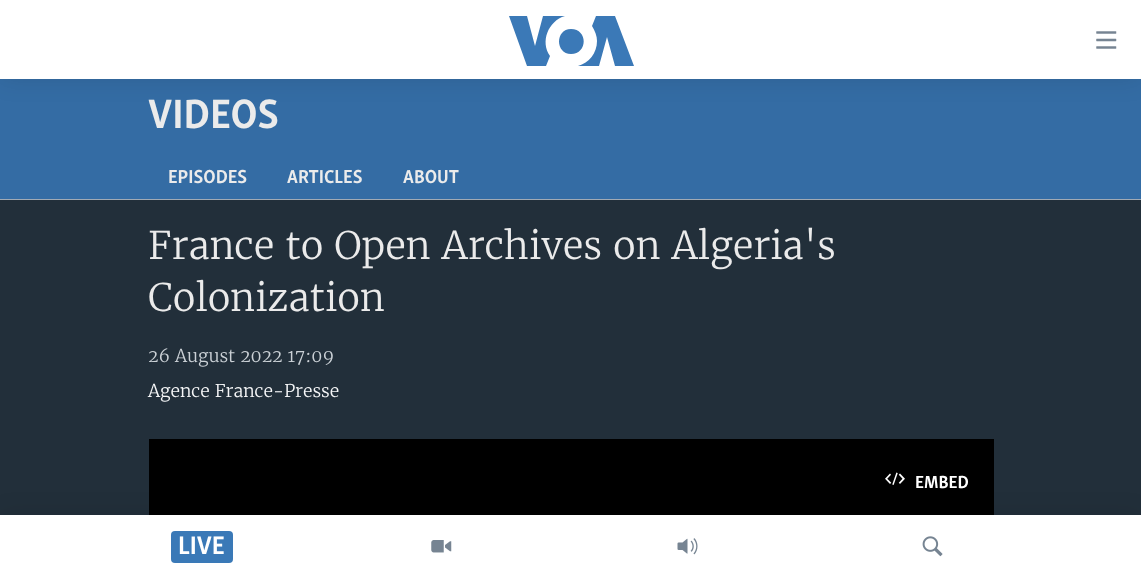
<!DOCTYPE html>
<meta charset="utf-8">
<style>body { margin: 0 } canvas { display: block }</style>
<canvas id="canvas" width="1141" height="577"></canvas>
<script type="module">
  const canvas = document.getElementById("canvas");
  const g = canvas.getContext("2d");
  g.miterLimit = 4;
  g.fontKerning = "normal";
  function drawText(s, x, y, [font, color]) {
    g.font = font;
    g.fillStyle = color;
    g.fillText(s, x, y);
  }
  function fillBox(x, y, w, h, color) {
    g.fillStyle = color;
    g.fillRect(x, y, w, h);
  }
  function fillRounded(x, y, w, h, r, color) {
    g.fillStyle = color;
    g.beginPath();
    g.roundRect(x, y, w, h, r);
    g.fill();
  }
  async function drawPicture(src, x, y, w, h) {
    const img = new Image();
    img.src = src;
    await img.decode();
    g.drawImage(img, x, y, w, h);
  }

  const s1 = ["bold 42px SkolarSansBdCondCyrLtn", "#EBEBEB"];
  const s2 = ["bold 19.25px SkolarSansBdCondCyrLtn", "#EBEBEB"];
  const s3 = ["300 38px Merriweather", "#EBEBEB"];
  const s4 = ["300 17.5px Merriweather", "#CBD1D6"];
  const s5 = ["300 17.5px Merriweather", "#F6F7F8"];
  const s6 = ["bold 18px SkolarSansBdCondCyrLtn", "#FFFFFF"];
  const s7 = ["bold 26px SkolarSansBdCondCyrLtn", "#FFFFFF"];

  fillBox(0, 0, 1141, 577, "#346CA4");
  drawText("VIDEOS", 148, 128, s1);
  drawText("EPISODES", 168, 183, s2);
  drawText("ARTICLES", 287, 183, s2);
  drawText("ABOUT", 403, 183, s2);
  fillBox(0, 200, 1141, 315, "#222F3A");
  fillBox(0, 199, 1141, 1, "#A1AAB4");
  drawText("France to Open Archives on Algeria's", 148, 259, s3);
  drawText("Colonization", 148, 311, s3);
  drawText("26 August 2022 17:09", 148, 362, s4);
  drawText("Agence France-Presse", 148, 397, s5);
  fillBox(149, 439, 845, 76, "#000000");
  await drawPicture("pic1.png", 885, 472, 20, 13);
  drawText("EMBED", 915, 488, s6);
  g.fillStyle = "rgba(0, 0, 0, 0.1)";
  g.filter = "blur(12.5px)";
  g.beginPath();
  g.rect(0, 0, 1141, 79);
  g.fill();
  g.filter = "none";
  fillBox(0, 0, 1141, 79, "#FFFFFF");
  g.fillStyle = "#3B79B7";
  g.beginPath();
  g.moveTo(550, 56);
  g.lineTo(546, 66);
  g.lineTo(527, 66);
  g.lineTo(509, 16);
  g.lineTo(527, 16);
  g.lineTo(535, 46);
  g.lineTo(543, 16);
  g.lineTo(565, 16);
  g.bezierCurveTo(548, 21, 540, 42, 550, 56);
  g.closePath();
  g.moveTo(571, 29);
  g.bezierCurveTo(555, 29, 555, 54, 571, 54);
  g.bezierCurveTo(588, 54, 588, 29, 571, 29);
  g.closePath();
  g.moveTo(597, 41);
  g.bezierCurveTo(597, 53, 589, 63, 578, 66);
  g.lineTo(599, 66);
  g.lineTo(607, 37);
  g.lineTo(615, 66);
  g.lineTo(634, 66);
  g.lineTo(615, 16);
  g.lineTo(596, 16);
  g.lineTo(592, 26);
  g.bezierCurveTo(595, 31, 597, 36, 597, 41);
  g.closePath();
  g.fill();
  await drawPicture("pic2.png", 1096, 31, 21, 18);
  g.fillStyle = "rgba(0, 0, 0, 0.1)";
  g.filter = "blur(12.5px)";
  g.beginPath();
  g.rect(0, 515, 1141, 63);
  g.fill();
  g.filter = "none";
  fillBox(0, 515, 1141, 62, "#FFFFFF");
  fillRounded(171, 531, 62, 32, 4, "#3A79B7");
  drawText("LIVE", 178, 554, s7);
  await drawPicture("pic3.png", 431, 540, 21, 13);
  await drawPicture("pic4.png", 677, 538, 21, 17);
  await drawPicture("pic5.png", 922, 536, 21, 21);
</script>
